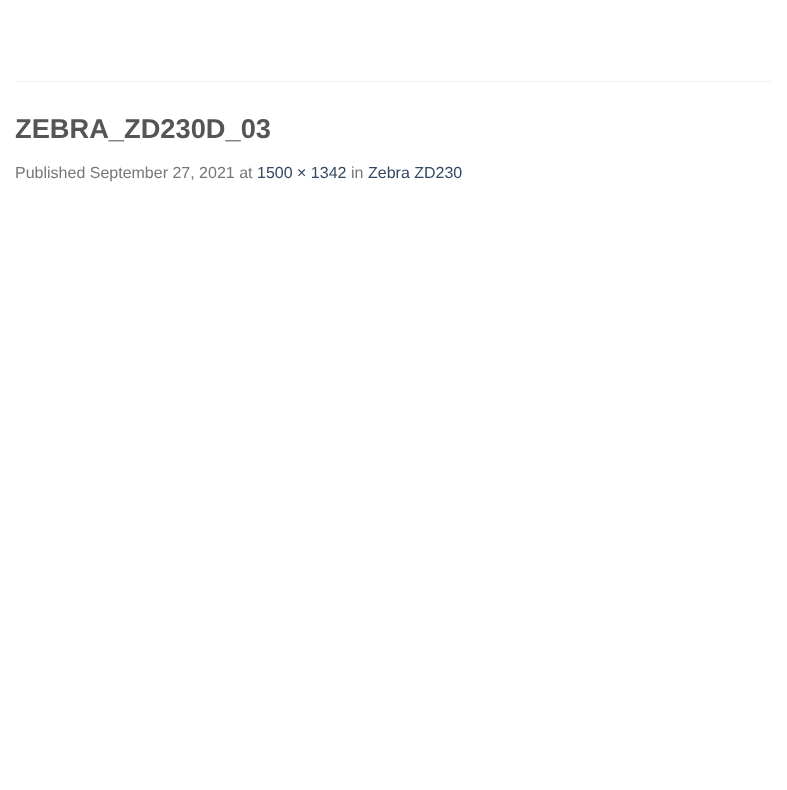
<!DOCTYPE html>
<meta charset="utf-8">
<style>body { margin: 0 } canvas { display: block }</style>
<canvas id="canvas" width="787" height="790"></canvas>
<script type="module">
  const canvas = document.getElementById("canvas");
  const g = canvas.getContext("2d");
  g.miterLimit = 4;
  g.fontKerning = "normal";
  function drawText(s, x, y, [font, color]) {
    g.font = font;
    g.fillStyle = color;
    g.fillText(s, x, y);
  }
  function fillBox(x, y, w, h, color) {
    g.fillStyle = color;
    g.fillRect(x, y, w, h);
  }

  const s1 = ["bold 27.25px Liberation Sans", "#555555"];
  const s2 = ["16px Liberation Sans", "#777777"];
  const s3 = ["16px Liberation Sans", "#334862"];

  fillBox(0, 0, 787, 790, "#FFFFFF");
  fillBox(15, 81, 757, 1, "#F1F1F1");
  drawText("ZEBRA_ZD230D_03", 15, 138, s1);
  drawText("Published September 27, 2021 at", 15, 178, s2);
  drawText("1500 × 1342", 257, 178, s3);
  drawText("in", 351, 178, s2);
  drawText("Zebra ZD230", 368, 178, s3);
</script>
